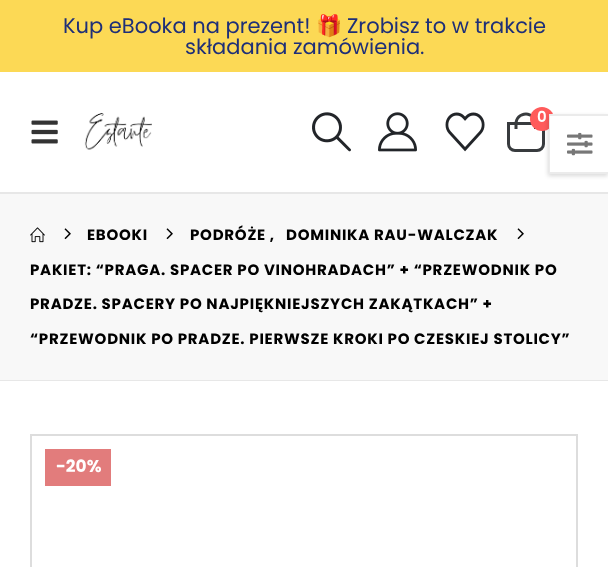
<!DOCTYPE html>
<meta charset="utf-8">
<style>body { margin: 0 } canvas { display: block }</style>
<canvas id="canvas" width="608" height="567"></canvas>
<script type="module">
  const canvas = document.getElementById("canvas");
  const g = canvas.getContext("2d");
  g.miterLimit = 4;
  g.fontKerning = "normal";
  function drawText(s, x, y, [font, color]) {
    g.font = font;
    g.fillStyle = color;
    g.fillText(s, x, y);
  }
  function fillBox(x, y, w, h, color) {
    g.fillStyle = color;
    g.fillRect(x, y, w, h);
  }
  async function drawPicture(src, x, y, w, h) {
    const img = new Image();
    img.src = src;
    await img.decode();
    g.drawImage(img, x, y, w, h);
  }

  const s1 = ["21px Poppins", "#1E2F78"];
  const s2 = ["21px Noto Color Emoji", "#1E2F78"];
  const s3 = ["600 15px Poppins", "#FFFFFF"];
  const s4 = ["bold 15px Poppins", "#000000"];
  const s5 = ["bold 17px Poppins", "#FFFFFF"];

  fillBox(0, 0, 608, 567, "#FFFFFF");
  fillBox(0, 0, 608, 72, "#FCD955");
  drawText("Kup eBooka na prezent!", 63, 33, s1);
  drawText("🎁", 316, 33, s2);
  drawText("Zrobisz to w trakcie", 347, 33, s1);
  drawText("składania zamówienia.", 185, 54, s1);
  await drawPicture("pic1.png", 31, 120, 27, 24);
  await drawPicture("pic2.png", 84, 113, 68, 37);
  await drawPicture("pic3.png", 312, 112, 39, 40);
  await drawPicture("pic4.png", 378, 112, 39, 40);
  await drawPicture("pic5.png", 445, 112, 40, 40);
  g.beginPath();
  g.roundRect(508.5, 123.5, 35, 27, [0, 0, 6.5, 6.5]);
  g.strokeStyle = "#383B3E";
  g.lineWidth = 3;
  g.stroke();
  g.fillStyle = "#383B3E";
  g.beginPath();
  g.moveTo(526, 112.5);
  g.bezierCurveTo(532, 112.5, 537, 117.5, 537, 124);
  g.lineTo(537, 129);
  g.lineTo(514.5, 129);
  g.lineTo(514.5, 124);
  g.bezierCurveTo(514.5, 117.5, 519.5, 112.5, 526, 112.5);
  g.closePath();
  g.moveTo(526, 115.5);
  g.bezierCurveTo(530.5, 115.5, 534, 119, 534, 124);
  g.lineTo(534, 129);
  g.lineTo(517.5, 129);
  g.lineTo(517.5, 124);
  g.bezierCurveTo(517.5, 119, 521, 115.5, 526, 115.5);
  g.closePath();
  g.fill("evenodd");
  g.fillStyle = "#FF5B5B";
  g.beginPath();
  g.arc(542, 119, 12, 0, Math.PI * 2);
  g.fill();
  drawText("0", 537, 122, s3);
  fillBox(0, 194, 608, 186, "#F8F8F8");
  fillBox(0, 192, 608, 2, "#E7E7E7");
  fillBox(0, 380, 608, 1, "#E7E7E7");
  await drawPicture("pic6.png", 30, 227, 15, 16);
  await drawPicture("pic7.png", 64, 228, 7, 12);
  g.letterSpacing = "0.75px";
  drawText("EBOOKI", 87, 240, s4);
  await drawPicture("pic7.png", 166, 228, 7, 12);
  drawText("PODRÓŻE ,", 190, 240, s4);
  drawText("DOMINIKA RAU-WALCZAK", 286, 240, s4);
  await drawPicture("pic7.png", 517, 228, 7, 12);
  drawText("PAKIET: “PRAGA. SPACER PO VINOHRADACH” + “PRZEWODNIK PO", 30, 275, s4);
  drawText("PRADZE. SPACERY PO NAJPIĘKNIEJSZYCH ZAKĄTKACH” +", 30, 309, s4);
  drawText("“PRZEWODNIK PO PRADZE. PIERWSZE KROKI PO CZESKIEJ STOLICY”", 30, 344, s4);
  g.fillStyle = "rgba(0, 0, 0, 0.15)";
  g.filter = "blur(2px)";
  g.beginPath();
  g.rect(548, 116, 60, 60);
  g.fill();
  g.filter = "none";
  fillBox(549, 114, 59, 60, "#FFFFFF");
  g.fillStyle = "#EBEBEB";
  g.beginPath();
  g.moveTo(549, 114);
  g.lineTo(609, 114);
  g.lineTo(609, 116);
  g.lineTo(550, 116);
  g.closePath();
  g.moveTo(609, 174);
  g.lineTo(549, 174);
  g.lineTo(550, 172);
  g.lineTo(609, 172);
  g.closePath();
  g.fill();
  g.fillStyle = "rgba(0, 0, 0, 0.08)";
  g.beginPath();
  g.moveTo(549, 174);
  g.lineTo(549, 114);
  g.lineTo(550, 116);
  g.lineTo(550, 172);
  g.closePath();
  g.fill();
  await drawPicture("pic8.png", 567, 132, 26, 24);
  g.strokeStyle = "#DDDDDD";
  g.lineWidth = 2;
  g.strokeRect(31, 435, 546, 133);
  fillBox(45, 449, 66, 37, "#E27C7C");
  g.letterSpacing = "0px";
  drawText("-20%", 56, 472, s5);
</script>
